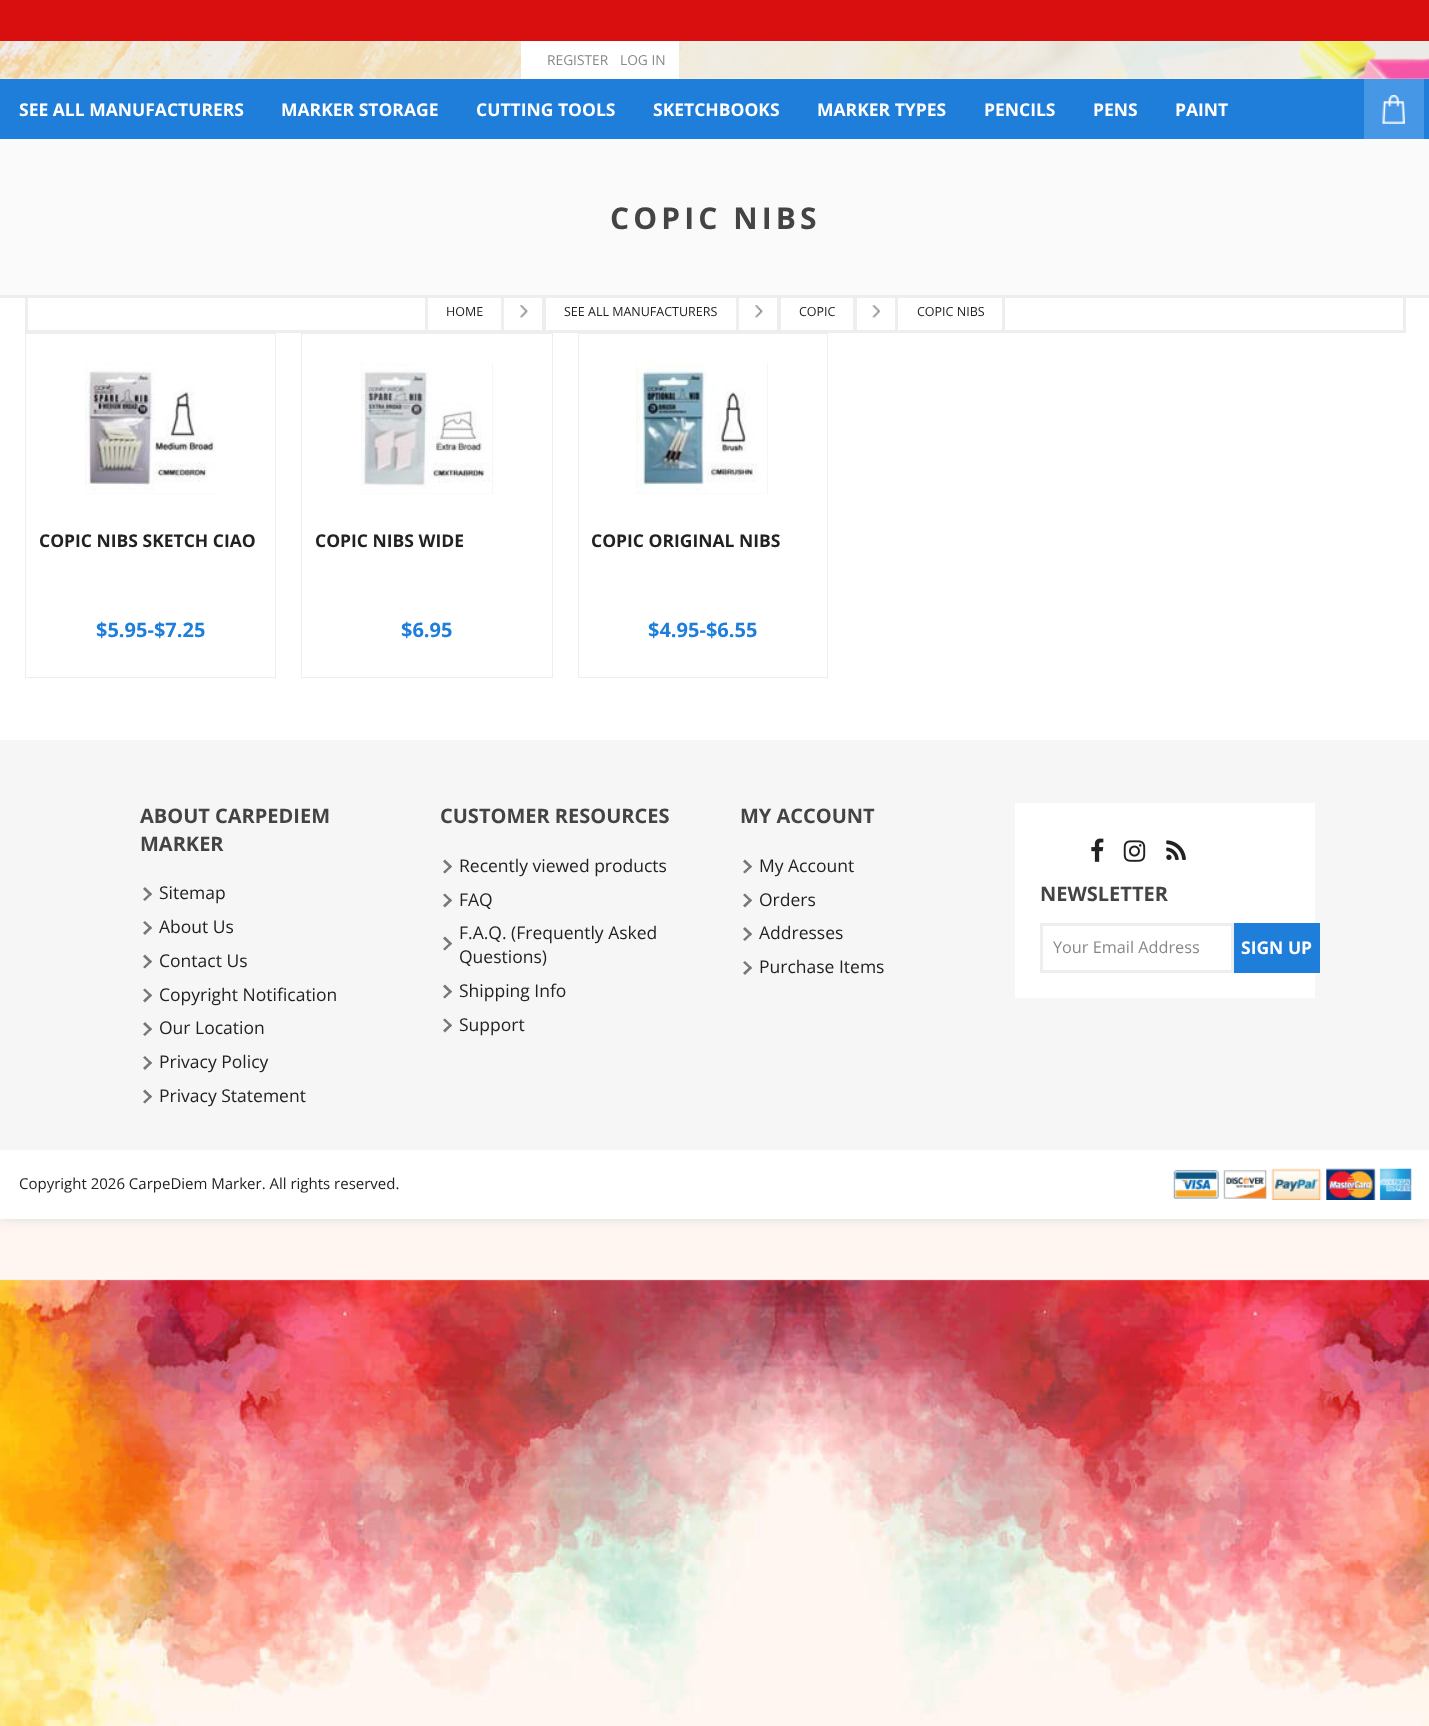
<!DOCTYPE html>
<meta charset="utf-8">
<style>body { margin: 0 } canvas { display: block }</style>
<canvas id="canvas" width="1429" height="1726"></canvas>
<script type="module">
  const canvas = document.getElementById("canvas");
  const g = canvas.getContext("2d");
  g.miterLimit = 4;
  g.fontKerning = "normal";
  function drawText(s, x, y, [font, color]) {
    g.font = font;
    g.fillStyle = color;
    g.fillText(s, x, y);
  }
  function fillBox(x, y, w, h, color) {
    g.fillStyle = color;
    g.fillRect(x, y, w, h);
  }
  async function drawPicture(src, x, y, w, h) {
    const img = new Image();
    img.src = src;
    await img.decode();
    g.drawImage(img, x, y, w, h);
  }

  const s1 = ["13.75px Open Sans", "#888888"];
  const s2 = ["bold 17.5px Open Sans", "#FFFFFF"];
  const s3 = ["bold 30px Open Sans", "#444444"];
  const s4 = ["bold 17.5px Open Sans", "#222222"];
  const s5 = ["bold 20px Open Sans", "#1E7EDA"];
  const s6 = ["12.5px Open Sans", "#222222"];
  const s7 = ["bold 20px Open Sans", "#444444"];
  const s8 = ["17.5px Open Sans", "#222222"];
  const s9 = ["16.25px Open Sans", "#888888"];
  const s10 = ["15px Open Sans", "#222222"];

  fillBox(0, 0, 1429, 1726, "#FFFFFF");
  await drawPicture("pic1.png", 0, 1219, 1429, 507);
  g.fillStyle = "#DDDDDD";
  g.filter = "blur(6px)";
  g.beginPath();
  g.rect(0, 0, 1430, 1219);
  g.fill();
  g.filter = "none";
  fillBox(0, 41, 1429, 699, "#FFFFFF");
  fillBox(0, 0, 1429, 41, "#D90E0E");
  await drawPicture("pic2.png", 0, 41, 1429, 38);
  fillBox(521, 41, 158, 38, "#FFFFFF");
  drawText("REGISTER", 547, 65, s1);
  drawText("LOG IN", 620, 65, s1);
  fillBox(0, 79, 1429, 60, "#1E7EDA");
  drawText("SEE ALL MANUFACTURERS", 19, 116, s2);
  drawText("MARKER STORAGE", 281, 116, s2);
  drawText("CUTTING TOOLS", 476, 116, s2);
  drawText("SKETCHBOOKS", 653, 116, s2);
  drawText("MARKER TYPES", 817, 116, s2);
  drawText("PENCILS", 984, 116, s2);
  drawText("PENS", 1093, 116, s2);
  drawText("PAINT", 1175, 116, s2);
  fillBox(1364, 79, 60, 60, "#4697E5");
  await drawPicture("pic3.png", 1382, 95, 23, 29);
  g.strokeStyle = "#EEEEEE";
  g.lineWidth = 3;
  g.strokeRect(426.5, 290.5, 76, 41);
  await drawPicture("pic7.png", 520, 305, 8, 13);
  g.strokeRect(502.5, 290.5, 41, 41);
  g.strokeRect(544.5, 290.5, 193, 41);
  await drawPicture("pic7.png", 755, 305, 8, 13);
  g.strokeRect(737.5, 290.5, 41, 41);
  g.strokeRect(779.5, 290.5, 75, 41);
  await drawPicture("pic8.png", 872, 305, 8, 13);
  g.strokeRect(855.5, 290.5, 41, 41);
  g.strokeRect(896.5, 290.5, 107, 41);
  fillBox(0, 139, 1429, 156, "#FBFAFA");
  fillBox(0, 295, 1429, 3, "#EEEEEE");
  g.letterSpacing = "4.1px";
  drawText("COPIC NIBS", 610, 229, s3);
  g.lineWidth = 1;
  g.strokeRect(25.5, 333.5, 250, 344);
  fillBox(85, 363, 131, 131, "#EEEEEE");
  await drawPicture("pic4.png", 85, 363, 131, 131);
  g.letterSpacing = "0px";
  drawText("COPIC NIBS SKETCH CIAO", 39, 547, s4);
  drawText("$5.95-$7.25", 96, 637, s5);
  g.strokeRect(301.5, 333.5, 251, 344);
  fillBox(361, 363, 132, 131, "#EEEEEE");
  await drawPicture("pic5.png", 361, 363, 132, 131);
  drawText("COPIC NIBS WIDE", 315, 547, s4);
  drawText("$6.95", 401, 637, s5);
  g.strokeRect(578.5, 333.5, 249, 344);
  fillBox(636, 363, 132, 131, "#EEEEEE");
  await drawPicture("pic6.png", 636, 363, 132, 131);
  drawText("COPIC ORIGINAL NIBS", 591, 547, s4);
  drawText("$4.95-$6.55", 648, 637, s5);
  fillBox(1403, 298, 3, 35, "#EEEEEE");
  fillBox(25, 298, 3, 35, "#EEEEEE");
  drawText("HOME", 446, 316, s6);
  drawText("SEE ALL MANUFACTURERS", 564, 316, s6);
  drawText("COPIC", 799, 316, s6);
  drawText("COPIC NIBS", 917, 316, s6);
  fillBox(28, 330, 1375, 3, "#EEEEEE");
  fillBox(0, 740, 1429, 410, "#F6F6F6");
  drawText("ABOUT CARPEDIEM", 140, 823, s7);
  drawText("MARKER", 140, 851, s7);
  g.fillStyle = "#777777";
  g.beginPath();
  g.moveTo(145, 887);
  g.lineTo(152, 894);
  g.lineTo(150.5, 896);
  g.lineTo(143, 889);
  g.closePath();
  g.fill();
  g.beginPath();
  g.moveTo(150.5, 892.5);
  g.lineTo(152, 894);
  g.lineTo(145, 901);
  g.lineTo(143, 899.5);
  g.closePath();
  g.fill();
  drawText("Sitemap", 159, 899, s8);
  g.fillStyle = "#777777";
  g.beginPath();
  g.moveTo(145, 921);
  g.lineTo(152, 928);
  g.lineTo(150.5, 929.5);
  g.lineTo(143, 922.5);
  g.closePath();
  g.fill();
  g.beginPath();
  g.moveTo(150.5, 926);
  g.lineTo(152, 928);
  g.lineTo(145, 935);
  g.lineTo(143, 933);
  g.closePath();
  g.fill();
  drawText("About Us", 159, 933, s8);
  g.fillStyle = "#777777";
  g.beginPath();
  g.moveTo(145, 954.5);
  g.lineTo(152, 961.5);
  g.lineTo(150.5, 963.5);
  g.lineTo(143, 956.5);
  g.closePath();
  g.fill();
  g.beginPath();
  g.moveTo(150.5, 960);
  g.lineTo(152, 961.5);
  g.lineTo(145, 968.5);
  g.lineTo(143, 967);
  g.closePath();
  g.fill();
  drawText("Contact Us", 159, 967, s8);
  g.fillStyle = "#777777";
  g.beginPath();
  g.moveTo(145, 988.5);
  g.lineTo(152, 995.5);
  g.lineTo(150.5, 997);
  g.lineTo(143, 990);
  g.closePath();
  g.fill();
  g.beginPath();
  g.moveTo(150.5, 993.5);
  g.lineTo(152, 995.5);
  g.lineTo(145, 1002.5);
  g.lineTo(143, 1000.5);
  g.closePath();
  g.fill();
  drawText("Copyright Notification", 159, 1001, s8);
  g.fillStyle = "#777777";
  g.beginPath();
  g.moveTo(145, 1022);
  g.lineTo(152, 1029);
  g.lineTo(150.5, 1031);
  g.lineTo(143, 1024);
  g.closePath();
  g.fill();
  g.beginPath();
  g.moveTo(150.5, 1027.5);
  g.lineTo(152, 1029);
  g.lineTo(145, 1036);
  g.lineTo(143, 1034.5);
  g.closePath();
  g.fill();
  drawText("Our Location", 159, 1034, s8);
  g.fillStyle = "#777777";
  g.beginPath();
  g.moveTo(145, 1056);
  g.lineTo(152, 1063);
  g.lineTo(150.5, 1064.5);
  g.lineTo(143, 1057.5);
  g.closePath();
  g.fill();
  g.beginPath();
  g.moveTo(150.5, 1061);
  g.lineTo(152, 1063);
  g.lineTo(145, 1070);
  g.lineTo(143, 1068);
  g.closePath();
  g.fill();
  drawText("Privacy Policy", 159, 1068, s8);
  g.fillStyle = "#777777";
  g.beginPath();
  g.moveTo(145, 1089.5);
  g.lineTo(152, 1096.5);
  g.lineTo(150.5, 1098.5);
  g.lineTo(143, 1091.5);
  g.closePath();
  g.fill();
  g.beginPath();
  g.moveTo(150.5, 1095);
  g.lineTo(152, 1096.5);
  g.lineTo(145, 1103.5);
  g.lineTo(143, 1102);
  g.closePath();
  g.fill();
  drawText("Privacy Statement", 159, 1102, s8);
  drawText("CUSTOMER RESOURCES", 440, 823, s7);
  g.fillStyle = "#777777";
  g.beginPath();
  g.moveTo(445, 859.5);
  g.lineTo(452, 866.5);
  g.lineTo(450.5, 868.5);
  g.lineTo(443, 861.5);
  g.closePath();
  g.fill();
  g.beginPath();
  g.moveTo(450.5, 865);
  g.lineTo(452, 866.5);
  g.lineTo(445, 873.5);
  g.lineTo(443, 872);
  g.closePath();
  g.fill();
  drawText("Recently viewed products", 459, 872, s8);
  g.fillStyle = "#777777";
  g.beginPath();
  g.moveTo(445, 893.5);
  g.lineTo(452, 900.5);
  g.lineTo(450.5, 902);
  g.lineTo(443, 895);
  g.closePath();
  g.fill();
  g.beginPath();
  g.moveTo(450.5, 898.5);
  g.lineTo(452, 900.5);
  g.lineTo(445, 907.5);
  g.lineTo(443, 905.5);
  g.closePath();
  g.fill();
  drawText("FAQ", 459, 906, s8);
  g.fillStyle = "#777777";
  g.beginPath();
  g.moveTo(445, 936.5);
  g.lineTo(452, 943.5);
  g.lineTo(450.5, 945.5);
  g.lineTo(443, 938.5);
  g.closePath();
  g.fill();
  g.beginPath();
  g.moveTo(450.5, 942);
  g.lineTo(452, 943.5);
  g.lineTo(445, 950.5);
  g.lineTo(443, 949);
  g.closePath();
  g.fill();
  drawText("F.A.Q. (Frequently Asked", 459, 939, s8);
  drawText("Questions)", 459, 963, s8);
  g.fillStyle = "#777777";
  g.beginPath();
  g.moveTo(445, 984.5);
  g.lineTo(452, 991.5);
  g.lineTo(450.5, 993.5);
  g.lineTo(443, 986.5);
  g.closePath();
  g.fill();
  g.beginPath();
  g.moveTo(450.5, 990);
  g.lineTo(452, 991.5);
  g.lineTo(445, 998.5);
  g.lineTo(443, 997);
  g.closePath();
  g.fill();
  drawText("Shipping Info", 459, 997, s8);
  g.fillStyle = "#777777";
  g.beginPath();
  g.moveTo(445, 1018.5);
  g.lineTo(452, 1025.5);
  g.lineTo(450.5, 1027);
  g.lineTo(443, 1020);
  g.closePath();
  g.fill();
  g.beginPath();
  g.moveTo(450.5, 1023.5);
  g.lineTo(452, 1025.5);
  g.lineTo(445, 1032.5);
  g.lineTo(443, 1030.5);
  g.closePath();
  g.fill();
  drawText("Support", 459, 1031, s8);
  drawText("MY ACCOUNT", 740, 823, s7);
  g.fillStyle = "#777777";
  g.beginPath();
  g.moveTo(745, 859.5);
  g.lineTo(752, 866.5);
  g.lineTo(750.5, 868.5);
  g.lineTo(743, 861.5);
  g.closePath();
  g.fill();
  g.beginPath();
  g.moveTo(750.5, 865);
  g.lineTo(752, 866.5);
  g.lineTo(745, 873.5);
  g.lineTo(743, 872);
  g.closePath();
  g.fill();
  drawText("My Account", 759, 872, s8);
  g.fillStyle = "#777777";
  g.beginPath();
  g.moveTo(745, 893.5);
  g.lineTo(752, 900.5);
  g.lineTo(750.5, 902);
  g.lineTo(743, 895);
  g.closePath();
  g.fill();
  g.beginPath();
  g.moveTo(750.5, 898.5);
  g.lineTo(752, 900.5);
  g.lineTo(745, 907.5);
  g.lineTo(743, 905.5);
  g.closePath();
  g.fill();
  drawText("Orders", 759, 906, s8);
  g.fillStyle = "#777777";
  g.beginPath();
  g.moveTo(745, 927);
  g.lineTo(752, 934);
  g.lineTo(750.5, 936);
  g.lineTo(743, 929);
  g.closePath();
  g.fill();
  g.beginPath();
  g.moveTo(750.5, 932.5);
  g.lineTo(752, 934);
  g.lineTo(745, 941);
  g.lineTo(743, 939.5);
  g.closePath();
  g.fill();
  drawText("Addresses", 759, 939, s8);
  g.fillStyle = "#777777";
  g.beginPath();
  g.moveTo(745, 961);
  g.lineTo(752, 968);
  g.lineTo(750.5, 969.5);
  g.lineTo(743, 962.5);
  g.closePath();
  g.fill();
  g.beginPath();
  g.moveTo(750.5, 966);
  g.lineTo(752, 968);
  g.lineTo(745, 975);
  g.lineTo(743, 973);
  g.closePath();
  g.fill();
  drawText("Purchase Items", 759, 973, s8);
  fillBox(1015, 803, 300, 195, "#FFFFFF");
  await drawPicture("pic9.png", 1091, 838, 13, 24);
  await drawPicture("pic10.png", 1123, 840, 23, 22);
  await drawPicture("pic11.png", 1166, 840, 20, 20);
  drawText("NEWSLETTER", 1040, 901, s7);
  g.lineWidth = 3;
  g.strokeRect(1041.5, 924.5, 191, 47);
  drawText("Your Email Address", 1053, 953, s9);
  fillBox(1234, 923, 86, 50, "#1E7EDA");
  drawText("SIGN UP", 1241, 954, s2);
  fillBox(0, 1150, 1429, 69, "#FFFFFF");
  drawText("Copyright 2026 CarpeDiem Marker. All rights reserved.", 19, 1189, s10);
  await drawPicture("pic12.png", 1173, 1168, 239, 32);
</script>
